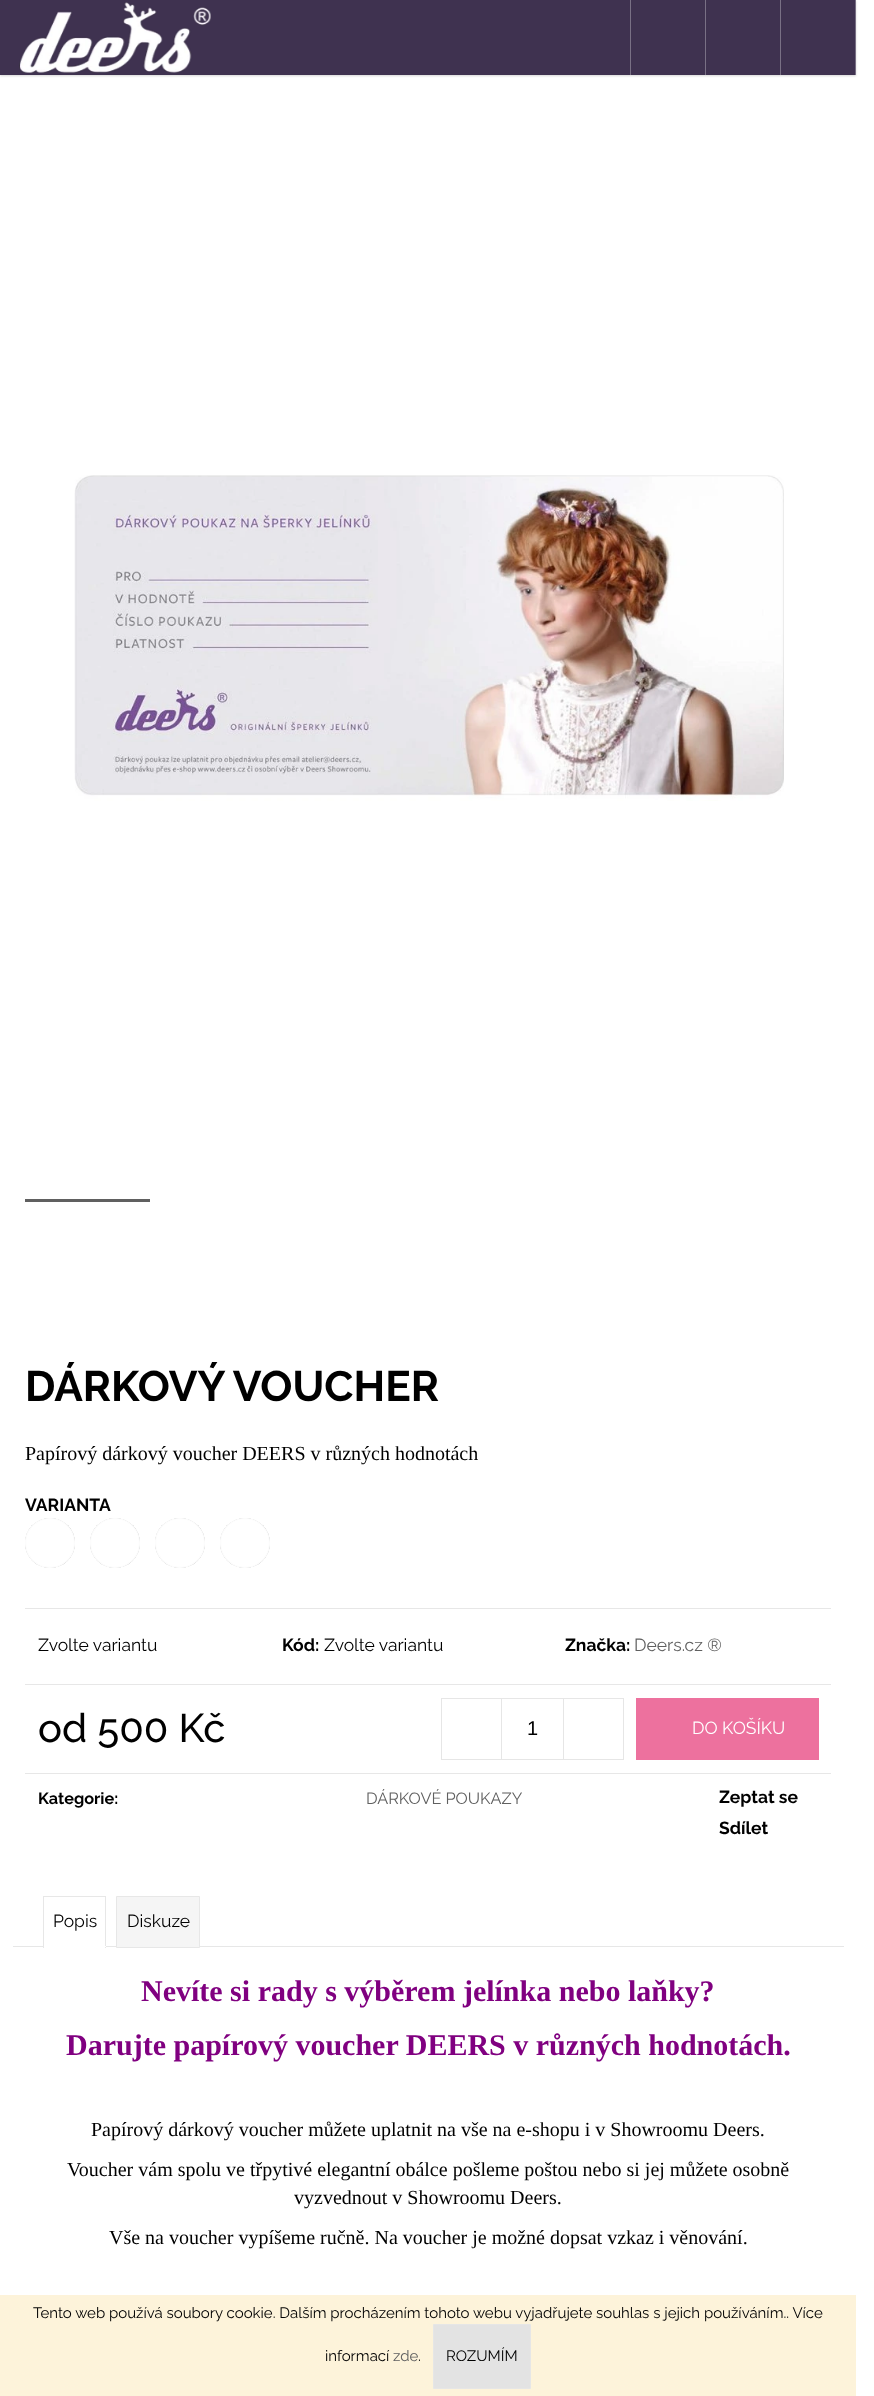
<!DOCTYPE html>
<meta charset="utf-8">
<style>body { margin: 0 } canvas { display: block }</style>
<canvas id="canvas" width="874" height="2396"></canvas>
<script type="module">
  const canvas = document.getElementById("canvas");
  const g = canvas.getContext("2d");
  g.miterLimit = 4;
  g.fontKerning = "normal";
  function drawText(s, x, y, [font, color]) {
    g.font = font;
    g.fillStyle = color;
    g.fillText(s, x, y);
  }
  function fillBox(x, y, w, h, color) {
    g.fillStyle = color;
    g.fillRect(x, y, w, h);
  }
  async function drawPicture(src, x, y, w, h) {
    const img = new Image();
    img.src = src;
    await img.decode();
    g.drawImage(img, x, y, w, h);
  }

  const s1 = ["bold 42.5px Raleway", "#000000"];
  const s2 = ["20px Liberation Serif", "#000000"];
  const s3 = ["bold 17.5px Raleway", "#000000"];
  const s4 = ["100 17.5px Raleway", "#000000"];
  const s5 = ["100 17.5px Raleway", "#606060"];
  const s6 = ["500 40px Raleway", "#000000"];
  const s7 = ["20px Liberation Sans", "#000000"];
  const s8 = ["100 17.5px Raleway", "#FFFFFF"];
  const s9 = ["bold 16.25px Raleway", "#000000"];
  const s10 = ["100 16.25px Raleway", "#606060"];
  const s11 = ["bold 30px Liberation Serif", "#800080"];
  const s12 = ["100 15px Raleway", "#000000"];
  const s13 = ["100 15px Raleway", "#606060"];

  fillBox(0, 0, 874, 2396, "#FFFFFF");
  g.fillStyle = "rgba(0, 0, 0, 0.16)";
  g.filter = "blur(1px)";
  g.beginPath();
  g.rect(0, 1, 856, 75);
  g.fill();
  g.filter = "none";
  fillBox(0, 0, 855, 75, "#3F3250");
  await drawPicture("pic1.png", 19, 2, 192, 71);
  fillBox(855, 0, 1, 75, "#797085");
  fillBox(630, 0, 1, 75, "#797085");
  fillBox(705, 0, 1, 75, "#797085");
  fillBox(780, 0, 1, 75, "#797085");
  await drawPicture("pic2.png", 74, 475, 710, 326);
  fillBox(25, 1199, 125, 3, "#606060");
  drawText("DÁRKOVÝ VOUCHER", 25, 1401, s1);
  drawText("Papírový dárkový voucher DEERS v různých hodnotách", 25, 1460, s2);
  drawText("VARIANTA", 25, 1511, s3);
  g.save();
  g.beginPath();
  g.moveTo(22, 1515);
  g.lineTo(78, 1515);
  g.lineTo(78, 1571);
  g.lineTo(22, 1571);
  g.closePath();
  g.moveTo(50, 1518);
  g.bezierCurveTo(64, 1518, 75, 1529, 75, 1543);
  g.bezierCurveTo(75, 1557, 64, 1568, 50, 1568);
  g.bezierCurveTo(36, 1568, 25, 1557, 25, 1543);
  g.bezierCurveTo(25, 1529, 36, 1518, 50, 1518);
  g.closePath();
  g.clip("evenodd");
  g.fillStyle = "rgba(0, 0, 0, 0.5)";
  g.filter = "blur(0.5px)";
  g.beginPath();
  g.roundRect(25, 1518, 50, 50, 25);
  g.fill();
  g.filter = "none";
  g.restore();
  g.beginPath();
  g.arc(50, 1543, 24.5, 0, Math.PI * 2);
  g.strokeStyle = "#FCFCFC";
  g.stroke();
  g.save();
  g.beginPath();
  g.moveTo(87, 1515);
  g.lineTo(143, 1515);
  g.lineTo(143, 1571);
  g.lineTo(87, 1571);
  g.closePath();
  g.moveTo(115, 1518);
  g.bezierCurveTo(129, 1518, 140, 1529, 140, 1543);
  g.bezierCurveTo(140, 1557, 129, 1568, 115, 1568);
  g.bezierCurveTo(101, 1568, 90, 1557, 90, 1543);
  g.bezierCurveTo(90, 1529, 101, 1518, 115, 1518);
  g.closePath();
  g.clip("evenodd");
  g.fillStyle = "rgba(0, 0, 0, 0.5)";
  g.filter = "blur(0.5px)";
  g.beginPath();
  g.roundRect(90, 1518, 50, 50, 25);
  g.fill();
  g.filter = "none";
  g.restore();
  g.beginPath();
  g.arc(115, 1543, 24.5, 0, Math.PI * 2);
  g.stroke();
  g.save();
  g.beginPath();
  g.moveTo(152, 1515);
  g.lineTo(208, 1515);
  g.lineTo(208, 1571);
  g.lineTo(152, 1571);
  g.closePath();
  g.moveTo(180, 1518);
  g.bezierCurveTo(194, 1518, 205, 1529, 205, 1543);
  g.bezierCurveTo(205, 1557, 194, 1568, 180, 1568);
  g.bezierCurveTo(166, 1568, 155, 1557, 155, 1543);
  g.bezierCurveTo(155, 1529, 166, 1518, 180, 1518);
  g.closePath();
  g.clip("evenodd");
  g.fillStyle = "rgba(0, 0, 0, 0.5)";
  g.filter = "blur(0.5px)";
  g.beginPath();
  g.roundRect(155, 1518, 50, 50, 25);
  g.fill();
  g.filter = "none";
  g.restore();
  g.beginPath();
  g.arc(180, 1543, 24.5, 0, Math.PI * 2);
  g.stroke();
  g.save();
  g.beginPath();
  g.moveTo(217, 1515);
  g.lineTo(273, 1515);
  g.lineTo(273, 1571);
  g.lineTo(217, 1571);
  g.closePath();
  g.moveTo(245, 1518);
  g.bezierCurveTo(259, 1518, 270, 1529, 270, 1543);
  g.bezierCurveTo(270, 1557, 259, 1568, 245, 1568);
  g.bezierCurveTo(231, 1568, 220, 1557, 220, 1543);
  g.bezierCurveTo(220, 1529, 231, 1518, 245, 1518);
  g.closePath();
  g.clip("evenodd");
  g.fillStyle = "rgba(0, 0, 0, 0.5)";
  g.filter = "blur(0.5px)";
  g.beginPath();
  g.roundRect(220, 1518, 50, 50, 25);
  g.fill();
  g.filter = "none";
  g.restore();
  g.beginPath();
  g.arc(245, 1543, 24.5, 0, Math.PI * 2);
  g.stroke();
  fillBox(25, 1608, 806, 1, "#E7E7E7");
  fillBox(25, 1684, 806, 1, "#E7E7E7");
  drawText("Zvolte variantu", 38, 1651, s4);
  drawText("Kód:", 282, 1651, s3);
  drawText("Zvolte variantu", 324, 1651, s4);
  drawText("Značka:", 565, 1651, s3);
  drawText("Deers.cz ®", 634, 1651, s5);
  fillBox(25, 1773, 806, 1, "#E7E7E7");
  drawText("od 500 Kč", 38, 1742, s6);
  g.strokeStyle = "#E6E6E6";
  g.strokeRect(441.5, 1698.5, 182, 61);
  fillBox(501, 1699, 1, 60, "#E6E6E6");
  drawText("1", 527, 1735, s7);
  fillBox(563, 1699, 1, 60, "#E6E6E6");
  fillBox(636, 1698, 183, 62, "#ED719E");
  drawText("DO KOŠÍKU", 692, 1734, s8);
  drawText("Kategorie:", 38, 1804, s9);
  drawText("DÁRKOVÉ POUKAZY", 366, 1804, s10);
  drawText("Zeptat se", 719, 1803, s3);
  drawText("Sdílet", 719, 1834, s3);
  fillBox(13, 1946, 831, 1, "#E7E7E7");
  fillBox(44, 1946, 61, 1, "#FFFFFF");
  fillBox(43, 1896, 63, 1, "#E7E7E7");
  fillBox(105, 1896, 1, 52, "#E7E7E7");
  fillBox(43, 1946, 63, 1, "#FFFFFF");
  fillBox(43, 1896, 1, 52, "#E7E7E7");
  drawText("Popis", 53, 1927, s4);
  g.fillStyle = "#F5F5F5";
  g.beginPath();
  g.rect(116.5, 1896.5, 83, 51);
  g.fill();
  g.strokeStyle = "#E7E7E7";
  g.stroke();
  drawText("Diskuze", 127, 1927, s4);
  drawText("Nevíte si rady s výběrem jelínka nebo laňky?", 141, 2001, s11);
  drawText("Darujte papírový voucher DEERS v různých hodnotách.", 66, 2055, s11);
  drawText("Papírový dárkový voucher můžete uplatnit na vše na e-shopu i v Showroomu Deers.", 91, 2136, s2);
  drawText("Voucher vám spolu ve třpytivé elegantní obálce pošleme poštou nebo si jej můžete osobně", 67, 2176, s2);
  drawText("vyzvednout v Showroomu Deers.", 294, 2204, s2);
  drawText("Vše na voucher vypíšeme ručně. Na voucher je možné dopsat vzkaz i věnování.", 109, 2244, s2);
  fillBox(0, 2295, 856, 101, "#FDF3DA");
  drawText("Tento web používá soubory cookie. Dalším procházením tohoto webu vyjadřujete souhlas s jejich používáním.. Více", 33, 2318, s12);
  drawText("informací", 325, 2361, s12);
  drawText("zde", 393, 2361, s13);
  drawText(".", 418, 2361, s12);
  g.fillStyle = "#E3E3E3";
  g.beginPath();
  g.rect(433.5, 2324.5, 97, 64);
  g.fill();
  g.strokeStyle = "#E6E6E6";
  g.stroke();
  drawText("ROZUMÍM", 446, 2361, s12);
</script>
